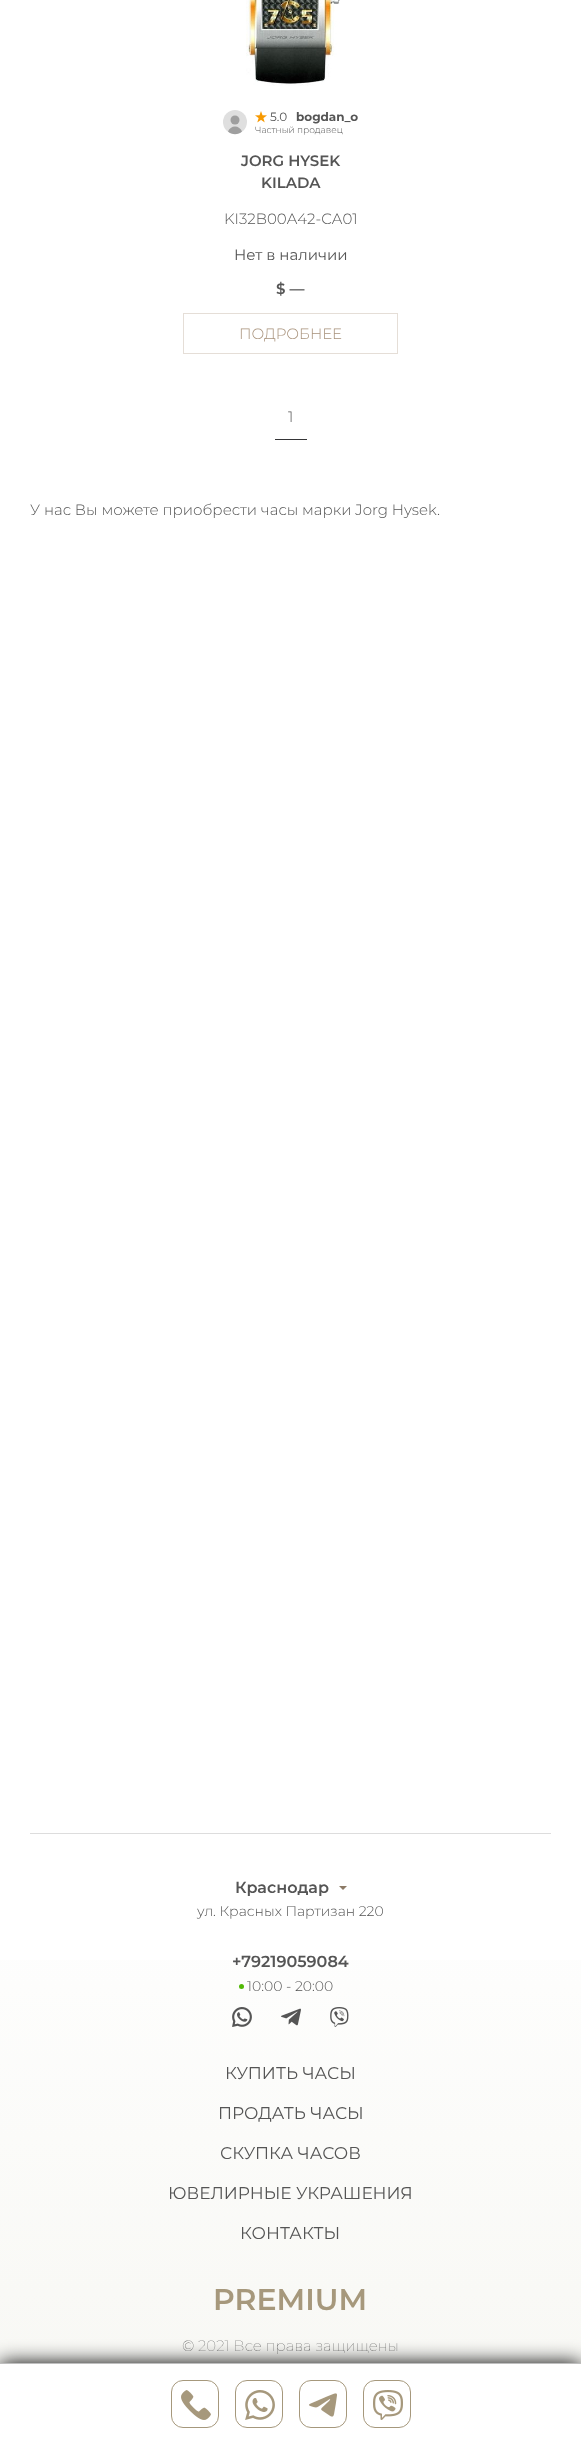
<!DOCTYPE html>
<meta charset="utf-8">
<style>body { margin: 0 } canvas { display: block }</style>
<canvas id="canvas" width="581" height="2444"></canvas>
<script type="module">
  const canvas = document.getElementById("canvas");
  const g = canvas.getContext("2d");
  g.miterLimit = 4;
  g.fontKerning = "normal";
  function drawText(s, x, y, [font, color]) {
    g.font = font;
    g.fillStyle = color;
    g.fillText(s, x, y);
  }
  function fillBox(x, y, w, h, color) {
    g.fillStyle = color;
    g.fillRect(x, y, w, h);
  }
  async function drawPicture(src, x, y, w, h) {
    const img = new Image();
    img.src = src;
    await img.decode();
    g.drawImage(img, x, y, w, h);
  }
  let gradient;

  const s1 = ["12px Montserrat", "#555555"];
  const s2 = ["bold 12px Montserrat", "#555555"];
  const s3 = ["300 9px Montserrat", "#555555"];
  const s4 = ["600 15px Montserrat", "#555555"];
  const s5 = ["300 15px Montserrat", "#555555"];
  const s6 = ["15px Montserrat", "#555555"];
  const s7 = ["300 15px Montserrat", "#A8927B"];
  const s8 = ["600 16px Montserrat", "#555555"];
  const s9 = ["300 14px Montserrat", "#555555"];
  const s10 = ["17px Montserrat", "#555555"];
  const s11 = ["600 30px Montserrat", "#A6987C"];
  const s12 = ["100 15px Montserrat", "#555555"];

  fillBox(0, 0, 581, 2444, "#FFFFFF");
  await drawPicture("pic1.png", 246, 0, 94, 86);
  g.fillStyle = "#DFDFDF";
  g.beginPath();
  g.arc(235, 122, 12, 0, Math.PI * 2);
  g.fill();
  g.fillStyle = "#9F9F9F";
  g.beginPath();
  g.arc(235, 120, 4.5, 0, Math.PI * 2);
  g.fill();
  g.beginPath();
  g.moveTo(235, 126.5);
  g.bezierCurveTo(238, 126.5, 241, 128.5, 242, 131.5);
  g.bezierCurveTo(238, 135, 232, 135, 228, 131.5);
  g.bezierCurveTo(229, 128.5, 232, 126.5, 235, 126.5);
  g.closePath();
  g.fill();
  await drawPicture("pic2.png", 255, 111, 12, 12);
  drawText("5.0", 270, 121, s1);
  drawText("bogdan_o", 296, 121, s2);
  drawText("Частный продавец", 255, 133, s3);
  drawText("JORG HYSEK", 241, 166, s4);
  drawText("KILADA", 261, 188, s4);
  drawText("KI32B00A42-CA01", 224, 224, s5);
  drawText("Нет в наличии", 234, 260, s6);
  drawText("$ —", 276, 294, s4);
  g.strokeStyle = "#E5DED7";
  g.strokeRect(183.5, 313.5, 214, 40);
  drawText("ПОДРОБНЕЕ", 239, 339, s7);
  fillBox(275, 439, 32, 1, "#353537");
  drawText("1", 288, 422, s5);
  drawText("У нас Вы можете приобрести часы марки Jorg Hysek.", 30, 515, s5);
  gradient = g.createLinearGradient(291, 2444, 291, 1833);
  gradient.addColorStop(0, "#F7F7F3");
  gradient.addColorStop(1, "#FFFFFF");
  g.fillStyle = gradient;
  g.fillRect(0, 1960, 581, 403);
  fillBox(30, 1833, 521, 1, "#DDDDDD");
  drawText("Краснодар", 235, 1893, s8);
  g.fillStyle = "#8C7A66";
  g.beginPath();
  g.moveTo(339, 1886);
  g.lineTo(343, 1890);
  g.lineTo(347, 1886);
  g.closePath();
  g.fill();
  drawText("ул. Красных Партизан 220", 197, 1916, s9);
  drawText("+79219059084", 232, 1967, s8);
  g.fillStyle = "#51B905";
  g.beginPath();
  g.arc(241.5, 1986.5, 2.5, 0, Math.PI * 2);
  g.fill();
  drawText("10:00 - 20:00", 247, 1991, s9);
  await drawPicture("pic3.png", 232, 2007, 20, 20);
  await drawPicture("pic4.png", 281, 2008, 20, 18);
  await drawPicture("pic5.png", 330, 2007, 19, 20);
  drawText("КУПИТЬ ЧАСЫ", 225, 2079, s10);
  drawText("ПРОДАТЬ ЧАСЫ", 218, 2119, s10);
  drawText("СКУПКА ЧАСОВ", 220, 2159, s10);
  drawText("ЮВЕЛИРНЫЕ УКРАШЕНИЯ", 168, 2199, s10);
  drawText("КОНТАКТЫ", 240, 2239, s10);
  drawText("PREMIUM", 213, 2310, s11);
  drawText("© 2021 Все права защищены", 182, 2351, s12);
  g.fillStyle = "#000000";
  g.filter = "blur(10px)";
  g.beginPath();
  g.rect(0, 2363, 581, 81);
  g.fill();
  g.filter = "none";
  fillBox(0, 2364, 581, 80, "#FFFFFF");
  fillBox(0, 2363, 581, 1, "#BFBFBF");
  g.beginPath();
  g.roundRect(171.5, 2380.5, 47, 47, 11.5);
  g.strokeStyle = "#A6987C";
  g.stroke();
  await drawPicture("pic6.png", 181, 2390, 30, 30);
  g.beginPath();
  g.roundRect(235.5, 2380.5, 47, 47, 11.5);
  g.stroke();
  await drawPicture("pic7.png", 245, 2390, 30, 30);
  g.beginPath();
  g.roundRect(299.5, 2380.5, 47, 47, 11.5);
  g.stroke();
  await drawPicture("pic8.png", 309, 2393, 28, 24);
  g.beginPath();
  g.roundRect(363.5, 2380.5, 47, 47, 11.5);
  g.stroke();
  await drawPicture("pic9.png", 373, 2390, 30, 30);
</script>
